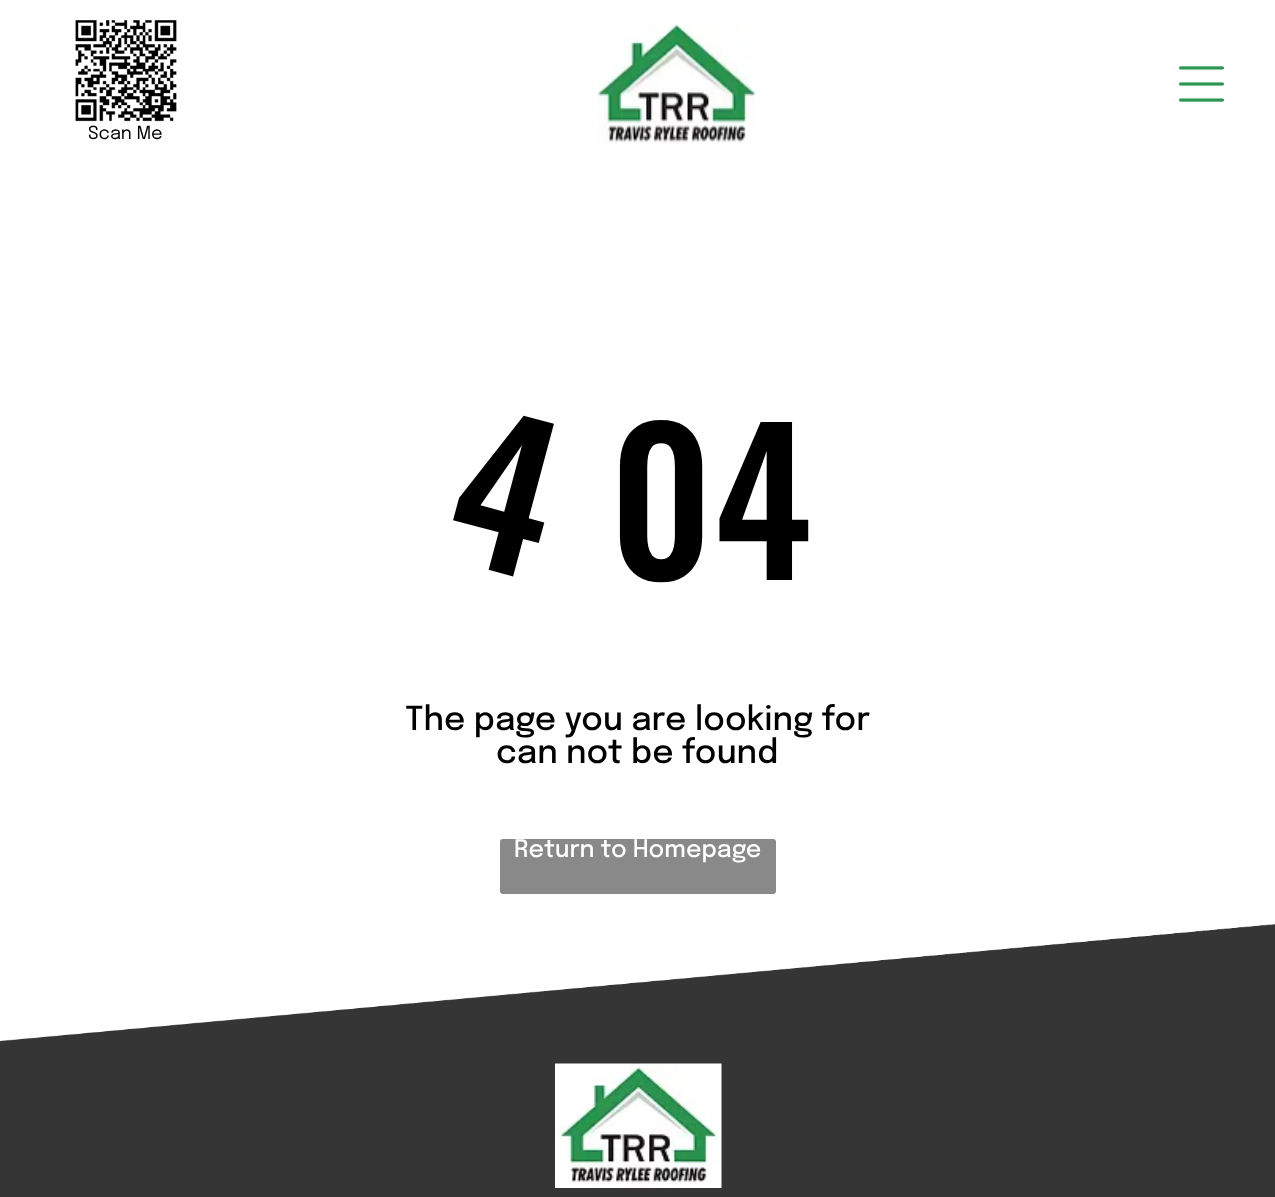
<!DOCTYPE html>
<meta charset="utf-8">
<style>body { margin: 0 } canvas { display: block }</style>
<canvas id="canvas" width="1275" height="1197"></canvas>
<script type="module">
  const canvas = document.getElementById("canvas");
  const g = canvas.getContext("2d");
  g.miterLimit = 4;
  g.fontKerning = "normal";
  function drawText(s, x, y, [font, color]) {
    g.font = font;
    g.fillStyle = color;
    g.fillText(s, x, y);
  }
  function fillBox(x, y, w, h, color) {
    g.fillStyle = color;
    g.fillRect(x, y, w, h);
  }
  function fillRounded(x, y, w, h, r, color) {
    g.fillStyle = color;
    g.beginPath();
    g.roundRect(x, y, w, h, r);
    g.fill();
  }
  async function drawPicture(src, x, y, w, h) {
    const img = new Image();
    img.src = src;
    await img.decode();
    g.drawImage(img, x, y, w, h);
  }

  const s1 = ["18px Epilogue", "#000000"];
  const s2 = ["500 195px Oswald", "#000000"];
  const s3 = ["500 33px Epilogue", "#000000"];
  const s4 = ["500 24px Epilogue", "#FFFFFF"];

  fillBox(0, 0, 1275, 1197, "#FFFFFF");
  await drawPicture("pic1.png", 598, 24, 158, 120);
  await drawPicture("pic2.png", 1179, 66, 45, 36);
  await drawPicture("pic3.png", 75, 20, 102, 102);
  drawText("Scan Me", 88, 139, s1);
  g.font = "500 195px Oswald";
  g.save();
  g.translate(437, 556);
  g.rotate(15 * Math.PI / 180);
  g.fillText("4", 0, 0);
  g.restore();
  drawText("04", 609, 580, s2);
  drawText("The page you are looking for", 405, 730, s3);
  drawText("can not be found", 496, 763, s3);
  fillRounded(500, 839, 276, 55, 3, "#898989");
  drawText("Return to Homepage", 514, 857, s4);
  fillBox(0, 924, 1275, 273, "#353535");
  await drawPicture("pic4.png", 0, 924, 1275, 117);
  await drawPicture("pic5.png", 555, 1063, 167, 125);
</script>
